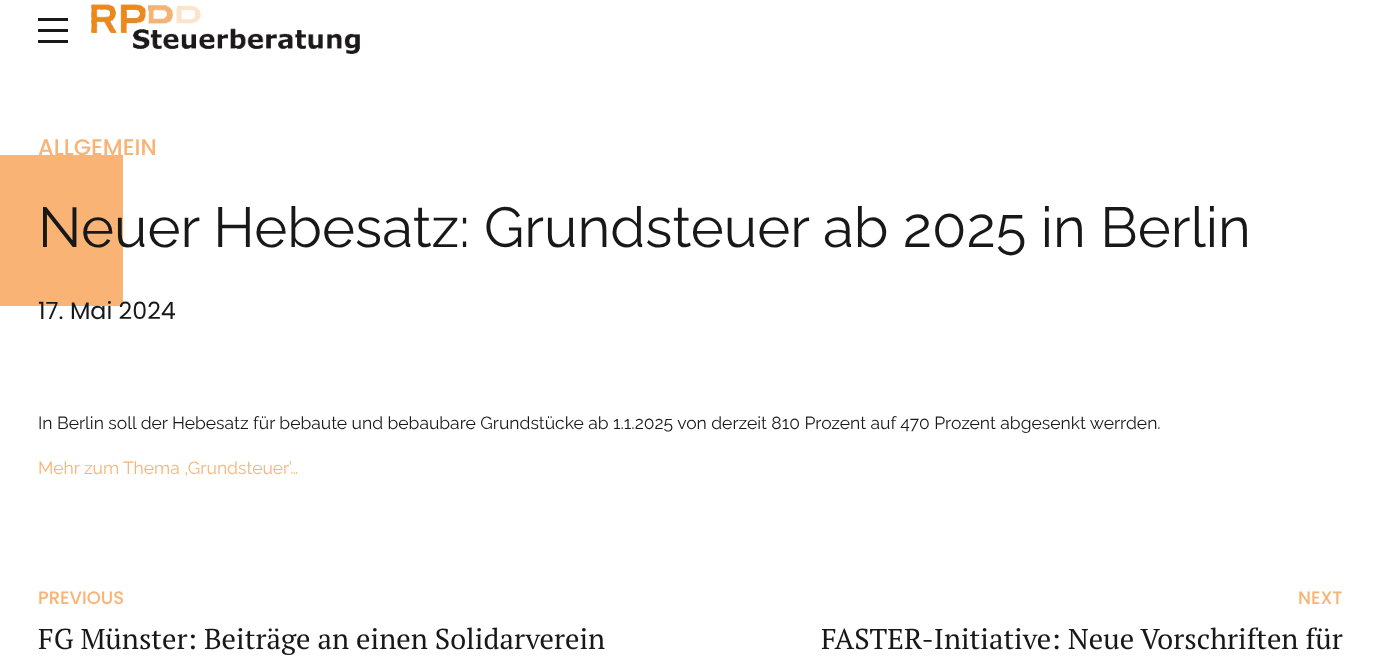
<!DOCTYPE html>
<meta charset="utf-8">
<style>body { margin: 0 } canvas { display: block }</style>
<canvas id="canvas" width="1379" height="672"></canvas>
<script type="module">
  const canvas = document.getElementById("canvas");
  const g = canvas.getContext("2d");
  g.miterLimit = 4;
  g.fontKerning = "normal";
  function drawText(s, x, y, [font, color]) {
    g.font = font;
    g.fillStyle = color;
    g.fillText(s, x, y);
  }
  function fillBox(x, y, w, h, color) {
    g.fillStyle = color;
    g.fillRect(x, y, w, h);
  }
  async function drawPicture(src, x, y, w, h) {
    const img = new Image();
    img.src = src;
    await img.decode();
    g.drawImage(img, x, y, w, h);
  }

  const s1 = ["500 22.5px Poppins", "#F8B375"];
  const s2 = ["56.25px Raleway", "#181818"];
  const s3 = ["23.75px Poppins", "#181818"];
  const s4 = ["17.5px Raleway", "#181818"];
  const s5 = ["17.5px Raleway", "#F8B375"];
  const s6 = ["500 18px Poppins", "#F8B375"];
  const s7 = ["28.75px PT Serif", "#181818"];

  fillBox(0, 0, 1379, 672, "#FFFFFF");
  fillBox(38, 18, 30, 3, "#181818");
  fillBox(38, 29, 30, 3, "#181818");
  fillBox(38, 40, 30, 3, "#181818");
  await drawPicture("pic1.png", 91, 4, 269, 50);
  fillBox(0, 155, 123, 151, "#F8B375");
  drawText("ALLGEMEIN", 38, 155, s1);
  drawText("Neuer Hebesatz: Grundsteuer ab 2025 in Berlin", 38, 247, s2);
  drawText("17. Mai 2024", 38, 319, s3);
  drawText("In Berlin soll der Hebesatz für bebaute und bebaubare Grundstücke ab 1.1.2025 von derzeit 810 Prozent auf 470 Prozent abgesenkt werrden.", 38, 429, s4);
  drawText("Mehr zum Thema ‚Grundsteuer’…", 38, 474, s5);
  drawText("PREVIOUS", 38, 604, s6);
  drawText("FG Münster: Beiträge an einen Solidarverein", 38, 649, s7);
  drawText("NEXT", 1298, 604, s6);
  drawText("FASTER-Initiative: Neue Vorschriften für", 821, 649, s7);
</script>
